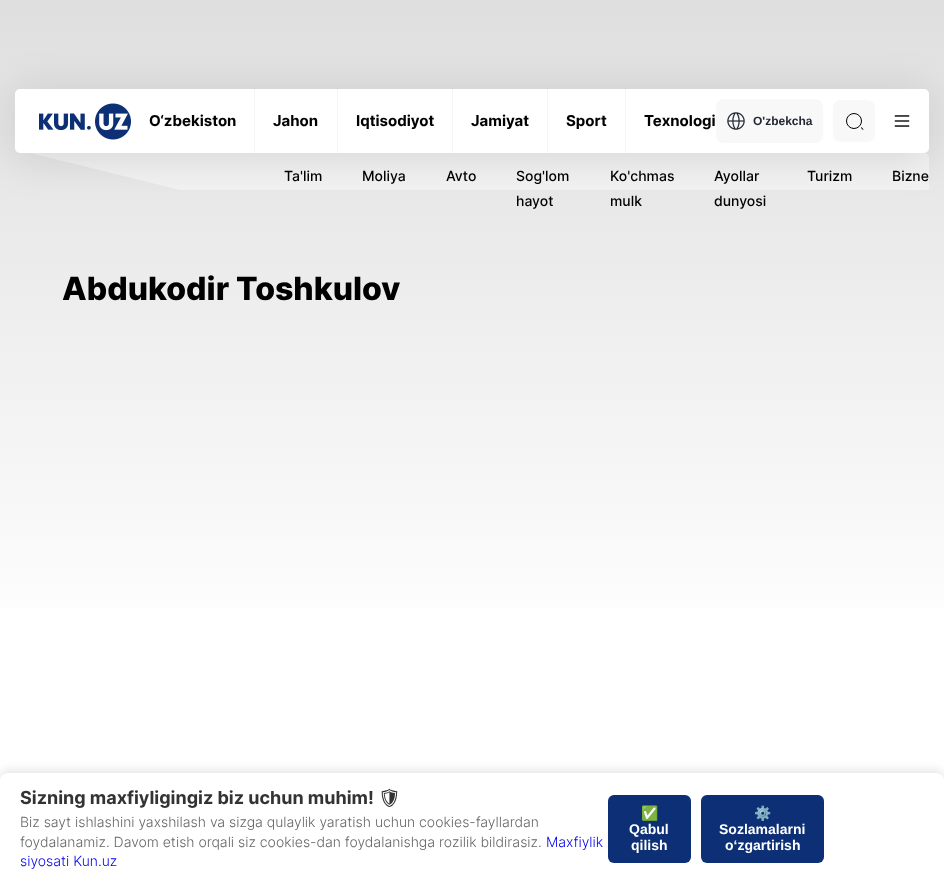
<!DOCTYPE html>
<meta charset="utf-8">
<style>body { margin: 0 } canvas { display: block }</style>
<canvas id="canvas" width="944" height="885"></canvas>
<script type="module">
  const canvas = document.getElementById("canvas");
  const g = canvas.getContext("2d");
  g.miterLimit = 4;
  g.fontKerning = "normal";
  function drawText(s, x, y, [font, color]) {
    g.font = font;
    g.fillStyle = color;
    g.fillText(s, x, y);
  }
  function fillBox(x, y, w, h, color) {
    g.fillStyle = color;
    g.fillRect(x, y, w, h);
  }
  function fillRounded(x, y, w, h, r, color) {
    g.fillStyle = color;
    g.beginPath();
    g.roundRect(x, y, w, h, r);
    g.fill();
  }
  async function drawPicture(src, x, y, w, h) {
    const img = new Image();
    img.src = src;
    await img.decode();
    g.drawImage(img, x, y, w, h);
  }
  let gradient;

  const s1 = ["bold 15px Inter", "#000000"];
  const s2 = ["bold 12px Liberation Sans", "#242833"];
  const s3 = ["500 14px Inter", "#000000"];
  const s4 = ["800 32px Inter", "#000000"];
  const s5 = ["bold 18px Inter", "#333333"];
  const s6 = ["bold 18px Noto Emoji", "#333333"];
  const s7 = ["300 14px Inter", "#666666"];
  const s8 = ["300 14px Inter", "#0000EE"];
  const s9 = ["bold 14px Noto Color Emoji", "#FFFFFF"];
  const s10 = ["bold 14px Liberation Sans", "#FFFFFF"];

  fillBox(0, 0, 944, 885, "#FFFFFF");
  gradient = g.createLinearGradient(472, -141, 472, 659);
  gradient.addColorStop(0, "#D8D8D8");
  gradient.addColorStop(1, "#FFFFFF");
  g.fillStyle = gradient;
  g.fillRect(0, 0, 944, 608);
  g.fillStyle = "#F2F2F2";
  g.beginPath();
  g.moveTo(30, 153);
  g.lineTo(180, 190);
  g.lineTo(929, 190);
  g.lineTo(929, 158);
  g.bezierCurveTo(929, 155, 927, 153, 924, 153);
  g.closePath();
  g.fill();
  g.fillStyle = "rgba(0, 0, 0, 0.12)";
  g.filter = "blur(22px)";
  g.beginPath();
  g.roundRect(15, 93, 914, 64, 5);
  g.fill();
  g.filter = "none";
  fillRounded(15, 89, 914, 64, 5, "#FFFFFF");
  await drawPicture("pic1.png", 39, 103, 92, 37);
  fillBox(254, 89, 1, 64, "#F5F5F5");
  drawText("O‘zbekiston", 149, 126, s1);
  fillBox(337, 89, 1, 64, "#F5F5F5");
  drawText("Jahon", 273, 126, s1);
  fillBox(452, 89, 1, 64, "#F5F5F5");
  drawText("Iqtisodiyot", 356, 126, s1);
  fillBox(547, 89, 1, 64, "#F5F5F5");
  drawText("Jamiyat", 471, 126, s1);
  fillBox(625, 89, 1, 64, "#F5F5F5");
  drawText("Sport", 566, 126, s1);
  drawText("Texnologi", 644, 126, s1);
  fillRounded(716, 99, 107, 44, 8, "#F8F8F8");
  await drawPicture("pic2.png", 727, 112, 18, 18);
  drawText("O'zbekcha", 753, 125, s2);
  fillRounded(833, 100, 42, 42, 8, "#F8F8F8");
  g.beginPath();
  g.arc(854, 121, 7.5, 0, Math.PI * 2);
  g.strokeStyle = "#000000";
  g.stroke();
  g.fillStyle = "#000000";
  g.beginPath();
  g.moveTo(861.5, 127);
  g.lineTo(863.5, 129.5);
  g.lineTo(863, 130);
  g.lineTo(861, 128);
  g.closePath();
  g.fill();
  await drawPicture("pic3.png", 894, 115, 16, 12);
  drawText("Ta'lim", 284, 181, s3);
  drawText("Moliya", 362, 181, s3);
  drawText("Avto", 446, 181, s3);
  drawText("Sog'lom", 516, 181, s3);
  drawText("hayot", 516, 206, s3);
  drawText("Ko'chmas", 610, 181, s3);
  drawText("mulk", 610, 206, s3);
  drawText("Ayollar", 714, 181, s3);
  drawText("dunyosi", 714, 206, s3);
  drawText("Turizm", 807, 181, s3);
  drawText("Bizne", 892, 181, s3);
  drawText("Abdukodir Toshkulov", 62, 300, s4);
  g.fillStyle = "rgba(0, 0, 0, 0.1)";
  g.filter = "blur(5px)";
  g.beginPath();
  g.roundRect(0, 770, 944, 112, 8);
  g.fill();
  g.filter = "none";
  g.fillStyle = "#FFFFFF";
  g.beginPath();
  g.roundRect(0, 773, 944, 112, [8, 8, 0, 0]);
  g.fill();
  drawText("Sizning maxfiyligingiz biz uchun muhim!", 20, 804, s5);
  drawText("🛡", 378, 804, s6);
  drawText("Biz sayt ishlashini yaxshilash va sizga qulaylik yaratish uchun cookies-fayllardan", 20, 827, s7);
  drawText("foydalanamiz. Davom etish orqali siz cookies-dan foydalanishga rozilik bildirasiz.", 20, 847, s7);
  drawText("Maxfiylik", 546, 847, s8);
  drawText("siyosati Kun.uz", 20, 866, s8);
  fillRounded(608, 795, 83, 68, 6, "#0C2F75");
  drawText("✅", 641, 818, s9);
  drawText("Qabul", 629, 834, s10);
  drawText("qilish", 631, 850, s10);
  fillRounded(701, 795, 123, 68, 6, "#0C2F75");
  drawText("⚙️", 754, 818, s9);
  drawText("Sozlamalarni", 719, 834, s10);
  drawText("o‘zgartirish", 725, 850, s10);
</script>
